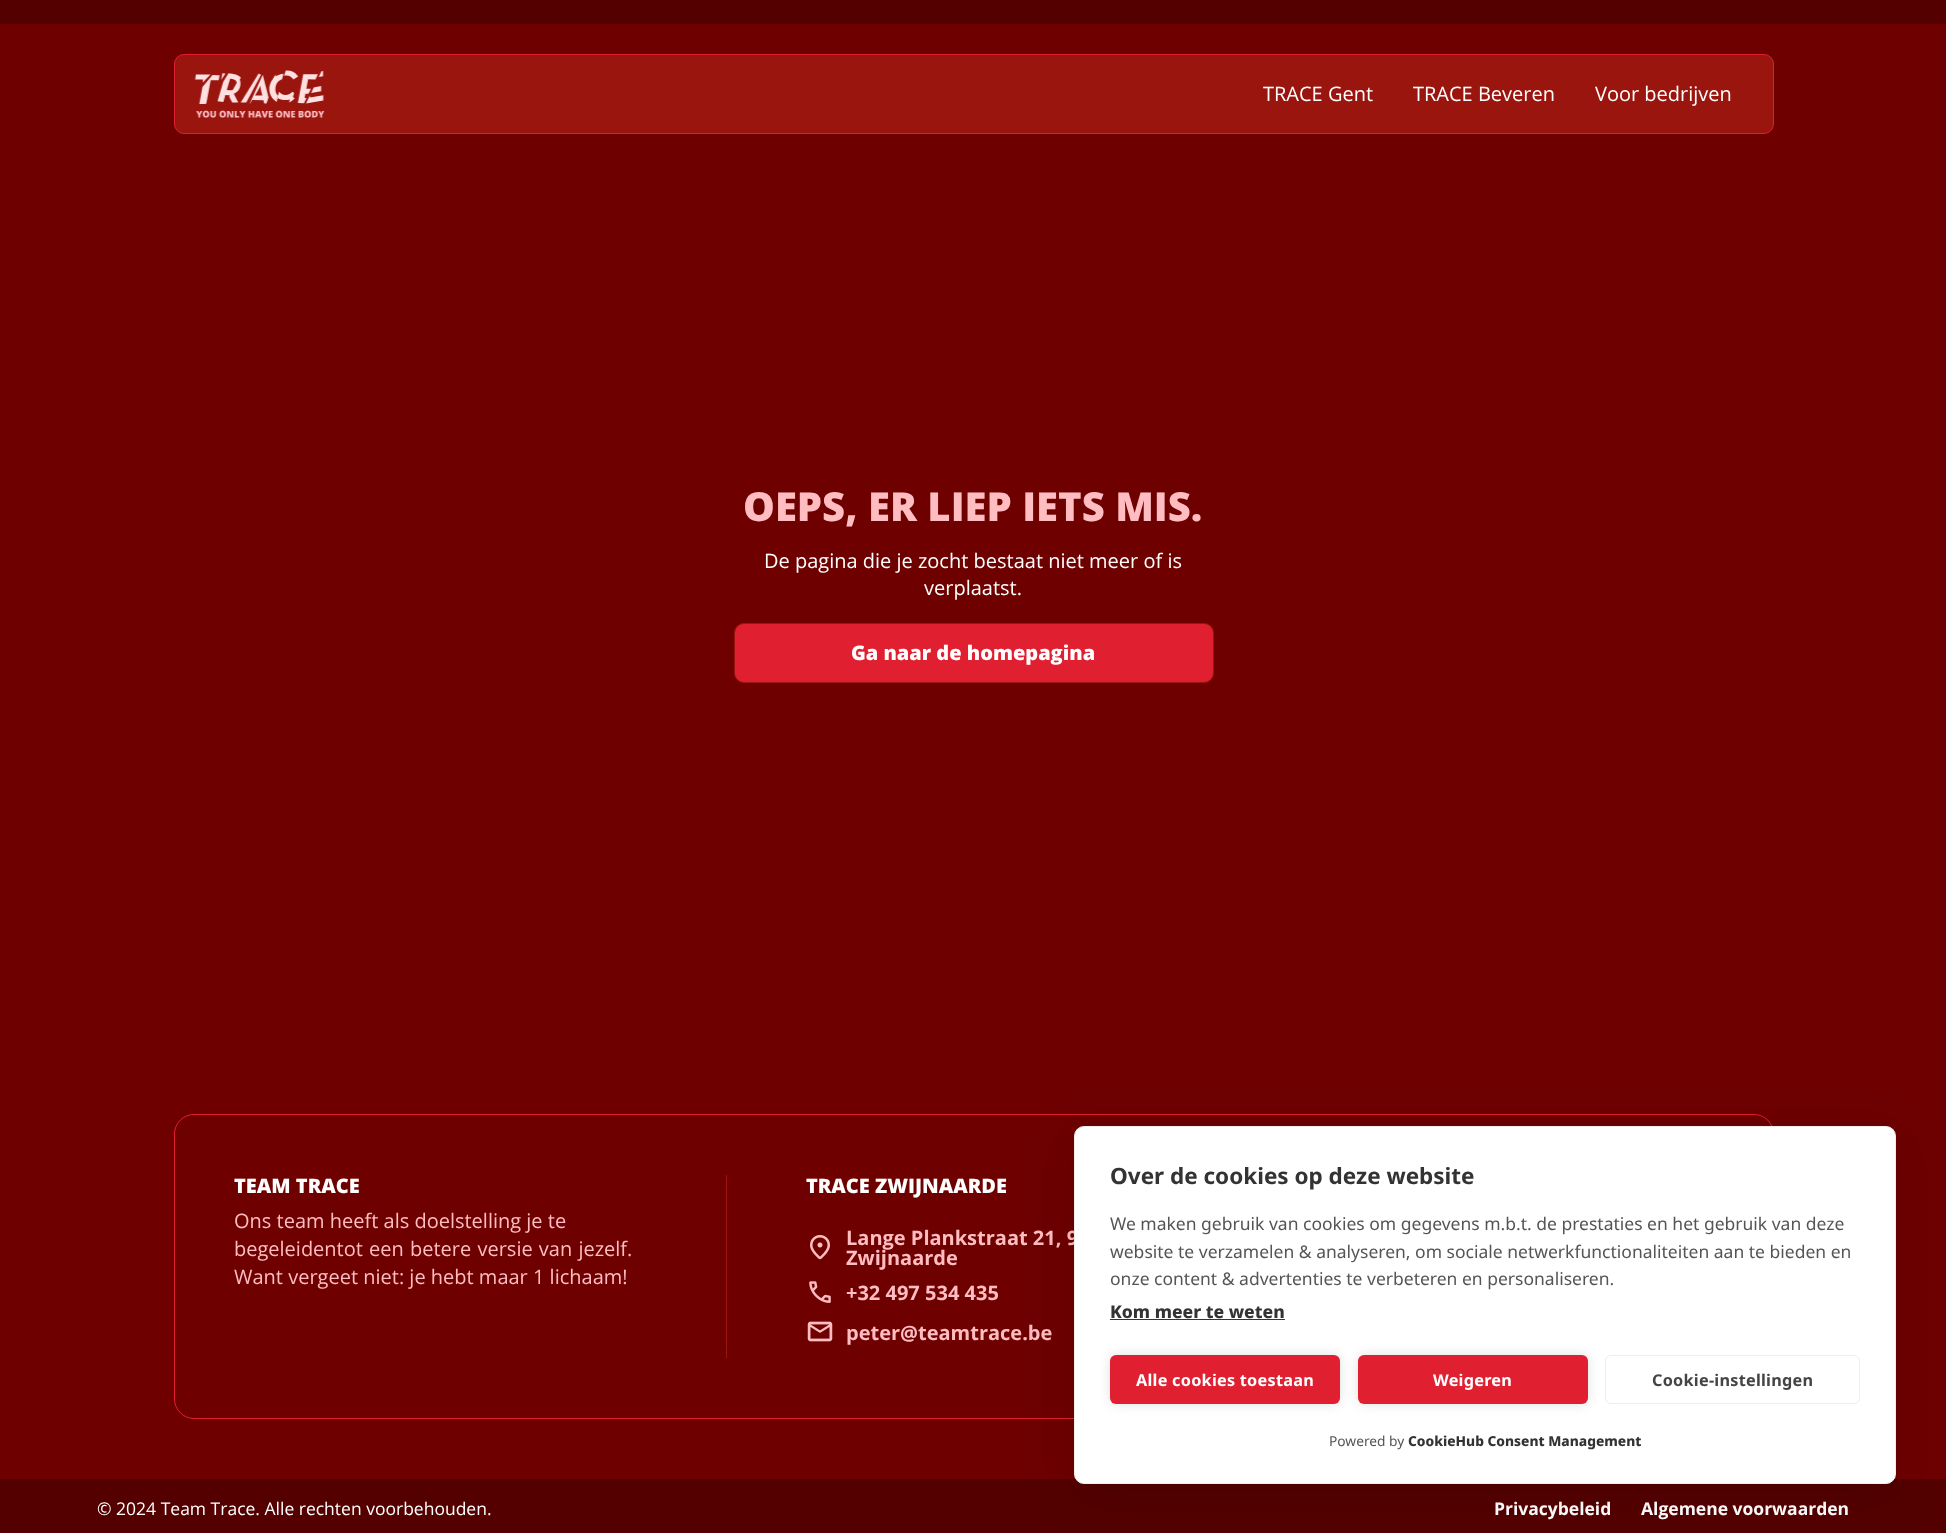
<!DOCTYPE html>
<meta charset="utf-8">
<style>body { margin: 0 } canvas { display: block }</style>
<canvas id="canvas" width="1946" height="1533"></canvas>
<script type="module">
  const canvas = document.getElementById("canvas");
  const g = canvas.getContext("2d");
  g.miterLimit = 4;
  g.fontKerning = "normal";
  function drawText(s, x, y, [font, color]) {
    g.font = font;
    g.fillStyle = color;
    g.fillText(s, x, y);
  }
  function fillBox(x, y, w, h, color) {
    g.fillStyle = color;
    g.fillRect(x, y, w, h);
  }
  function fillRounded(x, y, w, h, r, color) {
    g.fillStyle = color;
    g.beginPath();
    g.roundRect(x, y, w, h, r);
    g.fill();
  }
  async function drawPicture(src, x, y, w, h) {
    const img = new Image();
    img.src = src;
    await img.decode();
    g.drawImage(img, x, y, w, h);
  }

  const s1 = ["20px Open Sans", "#FFFFFF"];
  const s2 = ["800 40px Open Sans", "#FFBDC2"];
  const s3 = ["800 20px Open Sans", "#FFFFFF"];
  const s4 = ["20px Open Sans", "#FFBDC2"];
  const s5 = ["bold 20px Open Sans", "#FFBDC2"];
  const s6 = ["17.5px Open Sans", "#FFFFFF"];
  const s7 = ["bold 17.5px Open Sans", "#FFFFFF"];
  const s8 = ["bold 22.5px Noto Sans", "#333333"];
  const s9 = ["17.5px Noto Sans", "#555555"];
  const s10 = ["800 17.5px Noto Sans", "#333333"];
  const s11 = ["bold 16.25px Noto Sans", "#FFFFFF"];
  const s12 = ["bold 16.25px Noto Sans", "#444444"];
  const s13 = ["13.75px Noto Sans", "#555555"];
  const s14 = ["800 13.75px Noto Sans", "#333333"];

  fillBox(0, 0, 1946, 1533, "#6E0000");
  fillBox(0, 0, 1946, 24, "#540000");
  g.fillStyle = "#9B150F";
  g.beginPath();
  g.roundRect(174.5, 54.5, 1599, 79, 9.5);
  g.fill();
  g.strokeStyle = "#E02030";
  g.stroke();
  await drawPicture("pic1.png", 194, 70, 131, 48);
  drawText("TRACE Gent", 1263, 101, s1);
  drawText("TRACE Beveren", 1413, 101, s1);
  drawText("Voor bedrijven", 1595, 101, s1);
  drawText("OEPS, ER LIEP IETS MIS.", 743, 521, s2);
  drawText("De pagina die je zocht bestaat niet meer of is", 764, 568, s1);
  drawText("verplaatst.", 924, 595, s1);
  g.fillStyle = "#E02030";
  g.beginPath();
  g.roundRect(734.5, 623.5, 479, 59, 9.5);
  g.fill();
  g.strokeStyle = "#9B150F";
  g.stroke();
  drawText("Ga naar de homepagina", 851, 660, s3);
  g.beginPath();
  g.roundRect(174.5, 1114.5, 1599, 304, 19.5);
  g.strokeStyle = "#E02030";
  g.stroke();
  drawText("TEAM TRACE", 234, 1193, s3);
  drawText("Ons team heeft als doelstelling je te", 234, 1228, s4);
  g.wordSpacing = "1px";
  drawText("begeleidentot een betere versie van jezelf.", 234, 1256, s4);
  g.wordSpacing = "0px";
  drawText("Want vergeet niet: je hebt maar 1 lichaam!", 234, 1284, s4);
  fillBox(726, 1175, 1, 183, "#9B150F");
  drawText("TRACE ZWIJNAARDE", 806, 1193, s3);
  await drawPicture("pic2.png", 810, 1235, 20, 25);
  drawText("Lange Plankstraat 21, 9", 846, 1245, s5);
  drawText("Zwijnaarde", 846, 1265, s5);
  await drawPicture("pic3.png", 809, 1281, 22, 22);
  drawText("+32 497 534 435", 846, 1300, s5);
  await drawPicture("pic4.png", 807, 1321, 26, 21);
  drawText("peter@teamtrace.be", 846, 1340, s5);
  fillBox(0, 1479, 1946, 54, "#540000");
  drawText("© 2024 Team Trace. Alle rechten voorbehouden.", 97, 1515, s6);
  drawText("Privacybeleid", 1494, 1515, s7);
  drawText("Algemene voorwaarden", 1641, 1515, s7);
  g.fillStyle = "rgba(0, 0, 0, 0.1)";
  g.filter = "blur(25px)";
  g.beginPath();
  g.roundRect(1074, 1139, 822, 357, 10);
  g.fill();
  g.filter = "none";
  g.fillStyle = "#FFFFFF";
  g.beginPath();
  g.roundRect(1074.5, 1126.5, 821, 357, 9.5);
  g.fill();
  g.strokeStyle = "#EEEEEE";
  g.stroke();
  drawText("Over de cookies op deze website", 1110, 1184, s8);
  drawText("We maken gebruik van cookies om gegevens m.b.t. de prestaties en het gebruik van deze", 1110, 1230, s9);
  drawText("website te verzamelen & analyseren, om sociale netwerkfunctionaliteiten aan te bieden en", 1110, 1258, s9);
  drawText("onze content & advertenties te verbeteren en personaliseren.", 1110, 1285, s9);
  drawText("Kom meer te weten", 1110, 1318, s10);
  fillBox(1110, 1319, 175, 1, "#333333");
  g.fillStyle = "rgba(0, 0, 0, 0.12)";
  g.filter = "blur(6px)";
  g.beginPath();
  g.roundRect(1110, 1355, 230, 49, 6);
  g.fill();
  g.filter = "none";
  fillRounded(1110, 1355, 230, 49, 6, "#E02030");
  g.letterSpacing = "0.25px";
  drawText("Alle cookies toestaan", 1136, 1386, s11);
  g.fillStyle = "rgba(0, 0, 0, 0.12)";
  g.filter = "blur(6px)";
  g.beginPath();
  g.roundRect(1358, 1355, 230, 49, 6);
  g.fill();
  g.filter = "none";
  fillRounded(1358, 1355, 230, 49, 6, "#E02030");
  drawText("Weigeren", 1433, 1386, s11);
  g.beginPath();
  g.roundRect(1605.5, 1355.5, 254, 48, 5.5);
  g.stroke();
  drawText("Cookie-instellingen", 1652, 1386, s12);
  g.letterSpacing = "0px";
  drawText("Powered by", 1329, 1446, s13);
  drawText("CookieHub Consent Management", 1408, 1446, s14);
</script>
